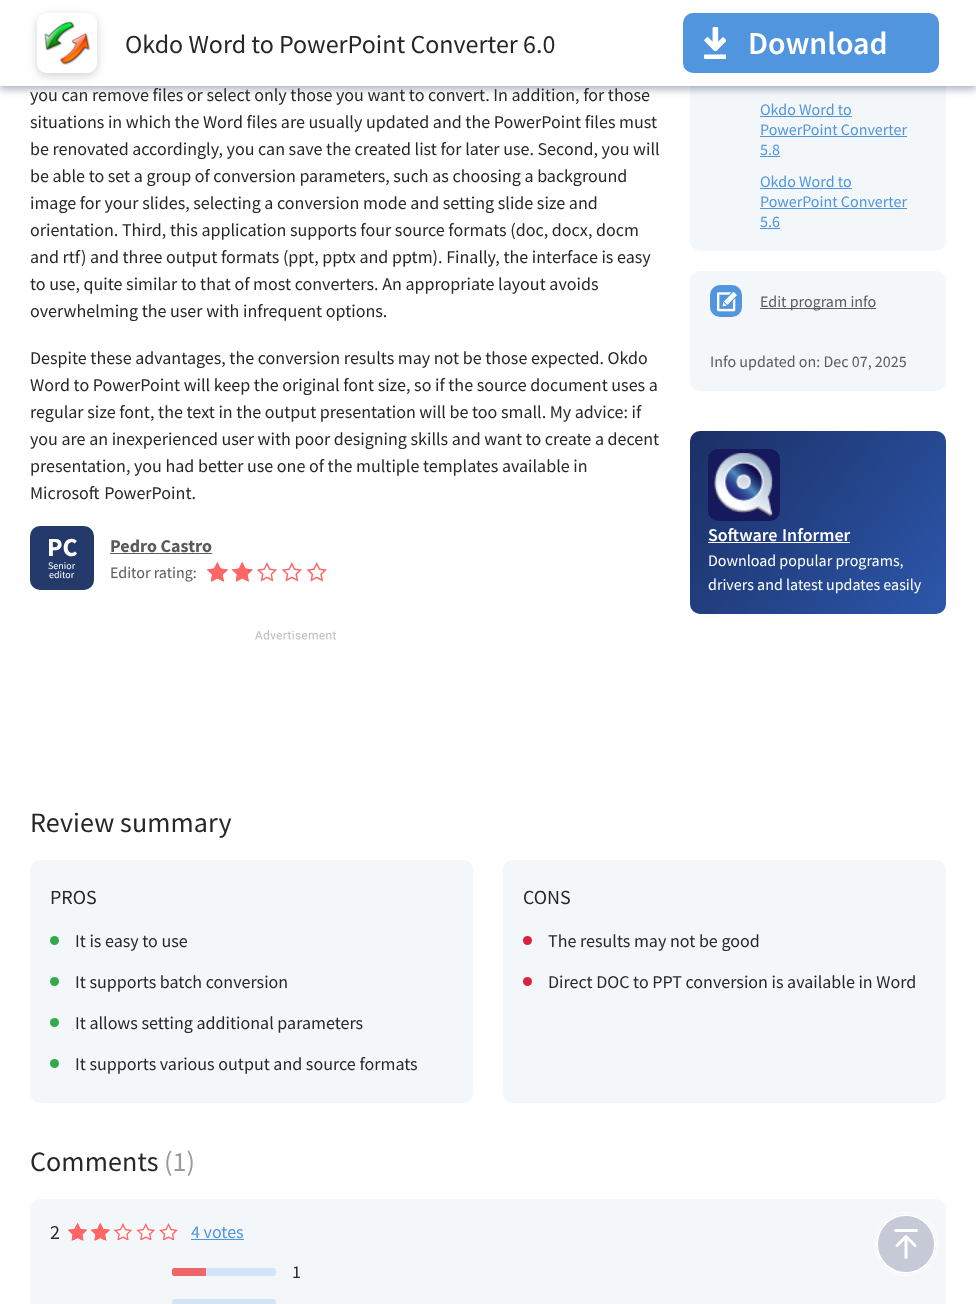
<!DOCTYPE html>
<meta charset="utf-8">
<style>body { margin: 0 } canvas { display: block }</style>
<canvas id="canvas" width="976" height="1304"></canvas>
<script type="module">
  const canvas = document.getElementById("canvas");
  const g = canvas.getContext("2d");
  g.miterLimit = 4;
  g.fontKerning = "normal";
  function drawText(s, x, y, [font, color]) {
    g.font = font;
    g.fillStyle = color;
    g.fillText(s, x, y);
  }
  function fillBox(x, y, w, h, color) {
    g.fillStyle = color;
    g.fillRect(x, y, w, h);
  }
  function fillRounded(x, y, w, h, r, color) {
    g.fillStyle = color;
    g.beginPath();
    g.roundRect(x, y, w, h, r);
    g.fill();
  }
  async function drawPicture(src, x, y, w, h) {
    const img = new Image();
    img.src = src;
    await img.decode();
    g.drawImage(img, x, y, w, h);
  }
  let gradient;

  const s1 = ["26px Source Sans Pro", "#272727"];
  const s2 = ["600 32px Source Sans Pro", "#FFFFFF"];
  const s3 = ["18px Source Sans Pro", "#272727"];
  const s4 = ["bold 26px Source Sans Pro", "#FFFFFF"];
  const s5 = ["10px Source Sans Pro", "#FFFFFF"];
  const s6 = ["bold 18px Source Sans Pro", "#5B5B5B"];
  const s7 = ["16px Source Sans Pro", "#5B5B5B"];
  const s8 = ["16px Source Sans Pro", "#5195DE"];
  const s9 = ["600 18px Source Sans Pro", "#FFFFFF"];
  const s10 = ["16px Source Sans Pro", "#FFFFFF"];
  const s11 = ["28px Source Sans Pro", "#272727"];
  const s12 = ["20px Source Sans Pro", "#272727"];
  const s13 = ["28px Source Sans Pro", "#9A9A9A"];
  const s14 = ["18px Source Sans Pro", "#5195DE"];

  fillBox(0, 0, 976, 1304, "#FFFFFF");
  fillRounded(690, -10, 256, 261, 10, "#F4F7FA");
  g.fillStyle = "rgba(27, 43, 84, 0.39)";
  g.filter = "blur(4.5px)";
  g.beginPath();
  g.rect(-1, 1, 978, 88);
  g.fill();
  g.filter = "none";
  fillBox(0, 0, 976, 86, "#FFFFFF");
  g.save();
  g.beginPath();
  g.moveTo(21, 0);
  g.lineTo(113, 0);
  g.lineTo(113, 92);
  g.lineTo(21, 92);
  g.closePath();
  g.moveTo(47, 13);
  g.lineTo(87, 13);
  g.bezierCurveTo(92.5, 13, 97, 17.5, 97, 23);
  g.lineTo(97, 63);
  g.bezierCurveTo(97, 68.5, 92.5, 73, 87, 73);
  g.lineTo(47, 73);
  g.bezierCurveTo(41.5, 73, 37, 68.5, 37, 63);
  g.lineTo(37, 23);
  g.bezierCurveTo(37, 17.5, 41.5, 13, 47, 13);
  g.closePath();
  g.clip("evenodd");
  g.fillStyle = "rgba(60, 72, 78, 0.24)";
  g.filter = "blur(5px)";
  g.beginPath();
  g.roundRect(37, 16, 60, 60, 10);
  g.fill();
  g.filter = "none";
  g.restore();
  await drawPicture("pic1.png", 44, 21, 47, 44);
  drawText("Okdo Word to PowerPoint Converter 6.0", 125, 53, s1);
  fillRounded(683, 13, 256, 60, 10, "#5195DE");
  await drawPicture("pic2.png", 704, 27, 22, 32);
  drawText("Download", 748, 54, s2);
  drawText("you can remove files or select only those you want to convert. In addition, for those", 30, 101, s3);
  drawText("situations in which the Word files are usually updated and the PowerPoint files must", 30, 128, s3);
  drawText("be renovated accordingly, you can save the created list for later use. Second, you will", 30, 155, s3);
  drawText("be able to set a group of conversion parameters, such as choosing a background", 30, 182, s3);
  drawText("image for your slides, selecting a conversion mode and setting slide size and", 30, 209, s3);
  drawText("orientation. Third, this application supports four source formats (doc, docx, docm", 30, 236, s3);
  drawText("and rtf) and three output formats (ppt, pptx and pptm). Finally, the interface is easy", 30, 263, s3);
  drawText("to use, quite similar to that of most converters. An appropriate layout avoids", 30, 290, s3);
  drawText("overwhelming the user with infrequent options.", 30, 317, s3);
  drawText("Despite these advantages, the conversion results may not be those expected. Okdo", 30, 364, s3);
  drawText("Word to PowerPoint will keep the original font size, so if the source document uses a", 30, 391, s3);
  drawText("regular size font, the text in the output presentation will be too small. My advice: if", 30, 418, s3);
  drawText("you are an inexperienced user with poor designing skills and want to create a decent", 30, 445, s3);
  drawText("presentation, you had better use one of the multiple templates available in", 30, 472, s3);
  g.wordSpacing = "1px";
  drawText("Microsoft PowerPoint.", 30, 499, s3);
  fillRounded(30, 526, 64, 64, 10, "#23396A");
  g.wordSpacing = "0px";
  drawText("PC", 47, 556, s4);
  drawText("Senior", 48, 569, s5);
  drawText("editor", 49, 578, s5);
  drawText("Pedro Castro", 110, 552, s6);
  fillBox(110, 553, 102, 1, "#5B5B5B");
  drawText("Editor rating:", 110, 578, s7);
  await drawPicture("pic3.png", 207, 562, 120, 20);
  await drawPicture("pic4.png", 207, 562, 46, 20);
  await drawPicture("pic5.png", 207, 562, 46, 20);
  drawText("Okdo Word to", 760, 115, s8);
  fillBox(760, 116, 92, 1, "#5195DE");
  drawText("PowerPoint Converter", 760, 135, s8);
  fillBox(760, 136, 147, 1, "#5195DE");
  drawText("5.8", 760, 155, s8);
  fillBox(760, 156, 20, 1, "#5195DE");
  drawText("Okdo Word to", 760, 187, s8);
  fillBox(760, 188, 92, 1, "#5195DE");
  drawText("PowerPoint Converter", 760, 207, s8);
  fillBox(760, 208, 147, 1, "#5195DE");
  drawText("5.6", 760, 227, s8);
  fillBox(760, 228, 20, 1, "#5195DE");
  fillRounded(690, 271, 256, 120, 10, "#F4F7FA");
  fillRounded(710, 285, 32, 32, 10, "#5195DE");
  await drawPicture("pic6.png", 717, 291, 20, 21);
  fillBox(760, 308, 116, 1, "#5B5B5B");
  drawText("Edit program info", 760, 307, s7);
  drawText("Info updated on: Dec 07, 2025", 710, 367, s7);
  gradient = g.createLinearGradient(692, 428, 944, 617);
  gradient.addColorStop(0.01, "#1B3065");
  gradient.addColorStop(0.98, "#2C56AA");
  g.fillStyle = gradient;
  g.beginPath();
  g.roundRect(690, 431, 256, 183, 10);
  g.fill();
  fillRounded(708, 449, 72, 72, 10, "#161A5C");
  await drawPicture("pic7.png", 714, 453, 59, 64);
  g.wordSpacing = "1px";
  drawText("Software Informer", 708, 541, s9);
  fillBox(708, 542, 142, 1, "#FFFFFF");
  g.wordSpacing = "0px";
  drawText("Download popular programs,", 708, 566, s10);
  drawText("drivers and latest updates easily", 708, 590, s10);
  await drawPicture("pic8.png", 255, 630, 81, 10);
  g.letterSpacing = "0.1px";
  drawText("Review summary", 30, 832, s11);
  fillRounded(30, 860, 443, 243, 10, "#F4F7FA");
  g.letterSpacing = "0px";
  drawText("PROS", 50, 904, s12);
  g.fillStyle = "#32AA4A";
  g.beginPath();
  g.arc(54.5, 940.5, 4.5, 0, Math.PI * 2);
  g.fill();
  drawText("It is easy to use", 75, 947, s3);
  g.fillStyle = "#32AA4A";
  g.beginPath();
  g.arc(54.5, 981.5, 4.5, 0, Math.PI * 2);
  g.fill();
  drawText("It supports batch conversion", 75, 988, s3);
  g.fillStyle = "#32AA4A";
  g.beginPath();
  g.arc(54.5, 1022.5, 4.5, 0, Math.PI * 2);
  g.fill();
  drawText("It allows setting additional parameters", 75, 1029, s3);
  g.fillStyle = "#32AA4A";
  g.beginPath();
  g.arc(54.5, 1063.5, 4.5, 0, Math.PI * 2);
  g.fill();
  drawText("It supports various output and source formats", 75, 1070, s3);
  fillRounded(503, 860, 443, 243, 10, "#F4F7FA");
  drawText("CONS", 523, 904, s12);
  g.fillStyle = "#D92240";
  g.beginPath();
  g.arc(527.5, 940.5, 4.5, 0, Math.PI * 2);
  g.fill();
  drawText("The results may not be good", 548, 947, s3);
  g.fillStyle = "#D92240";
  g.beginPath();
  g.arc(527.5, 981.5, 4.5, 0, Math.PI * 2);
  g.fill();
  drawText("Direct DOC to PPT conversion is available in Word", 548, 988, s3);
  g.letterSpacing = "0.1px";
  drawText("Comments", 30, 1171, s11);
  drawText("(1)", 164, 1171, s13);
  g.fillStyle = "#F4F7FA";
  g.beginPath();
  g.moveTo(40, 1199);
  g.lineTo(936, 1199);
  g.bezierCurveTo(941.5, 1199, 946, 1203.5, 946, 1209);
  g.lineTo(946, 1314);
  g.lineTo(30, 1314);
  g.lineTo(30, 1209);
  g.bezierCurveTo(30, 1203.5, 34.5, 1199, 40, 1199);
  g.closePath();
  g.fill();
  g.letterSpacing = "0px";
  drawText("2", 50, 1239, s12);
  await drawPicture("pic9.png", 68, 1223, 110, 17);
  await drawPicture("pic10.png", 68, 1223, 46, 17);
  await drawPicture("pic11.png", 68, 1223, 46, 18);
  drawText("4 votes", 191, 1238, s14);
  fillBox(191, 1239, 53, 1, "#5195DE");
  fillRounded(172, 1268, 104, 8, 2, "#D3E4F7");
  g.fillStyle = "#F06666";
  g.beginPath();
  g.roundRect(172, 1268, 34, 8, [2, 0, 0, 2]);
  g.fill();
  drawText("1", 292, 1278, s3);
  fillRounded(172, 1299, 104, 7, 2, "#D3E4F7");
  g.fillStyle = "#FFFFFF";
  g.filter = "blur(2.5px)";
  g.beginPath();
  g.roundRect(876, 1214, 60, 60, 30);
  g.fill();
  g.filter = "none";
  g.fillStyle = "#C6C9D6";
  g.beginPath();
  g.arc(906, 1244, 30, 0, Math.PI * 2);
  g.fill();
  g.beginPath();
  g.moveTo(895.5, 1230.5);
  g.lineTo(916.5, 1230.5);
  g.moveTo(915, 1245.5);
  g.lineTo(906, 1236.5);
  g.moveTo(906, 1236.5);
  g.lineTo(897, 1245.5);
  g.moveTo(906, 1236.5);
  g.lineTo(906, 1257.5);
  g.strokeStyle = "#FFFFFF";
  g.lineWidth = 3;
  g.lineCap = "round";
  g.lineJoin = "round";
  g.stroke();
  g.beginPath();
  g.arc(906, 1244, 29, 0, Math.PI * 2);
  g.lineWidth = 2;
  g.stroke();
</script>
